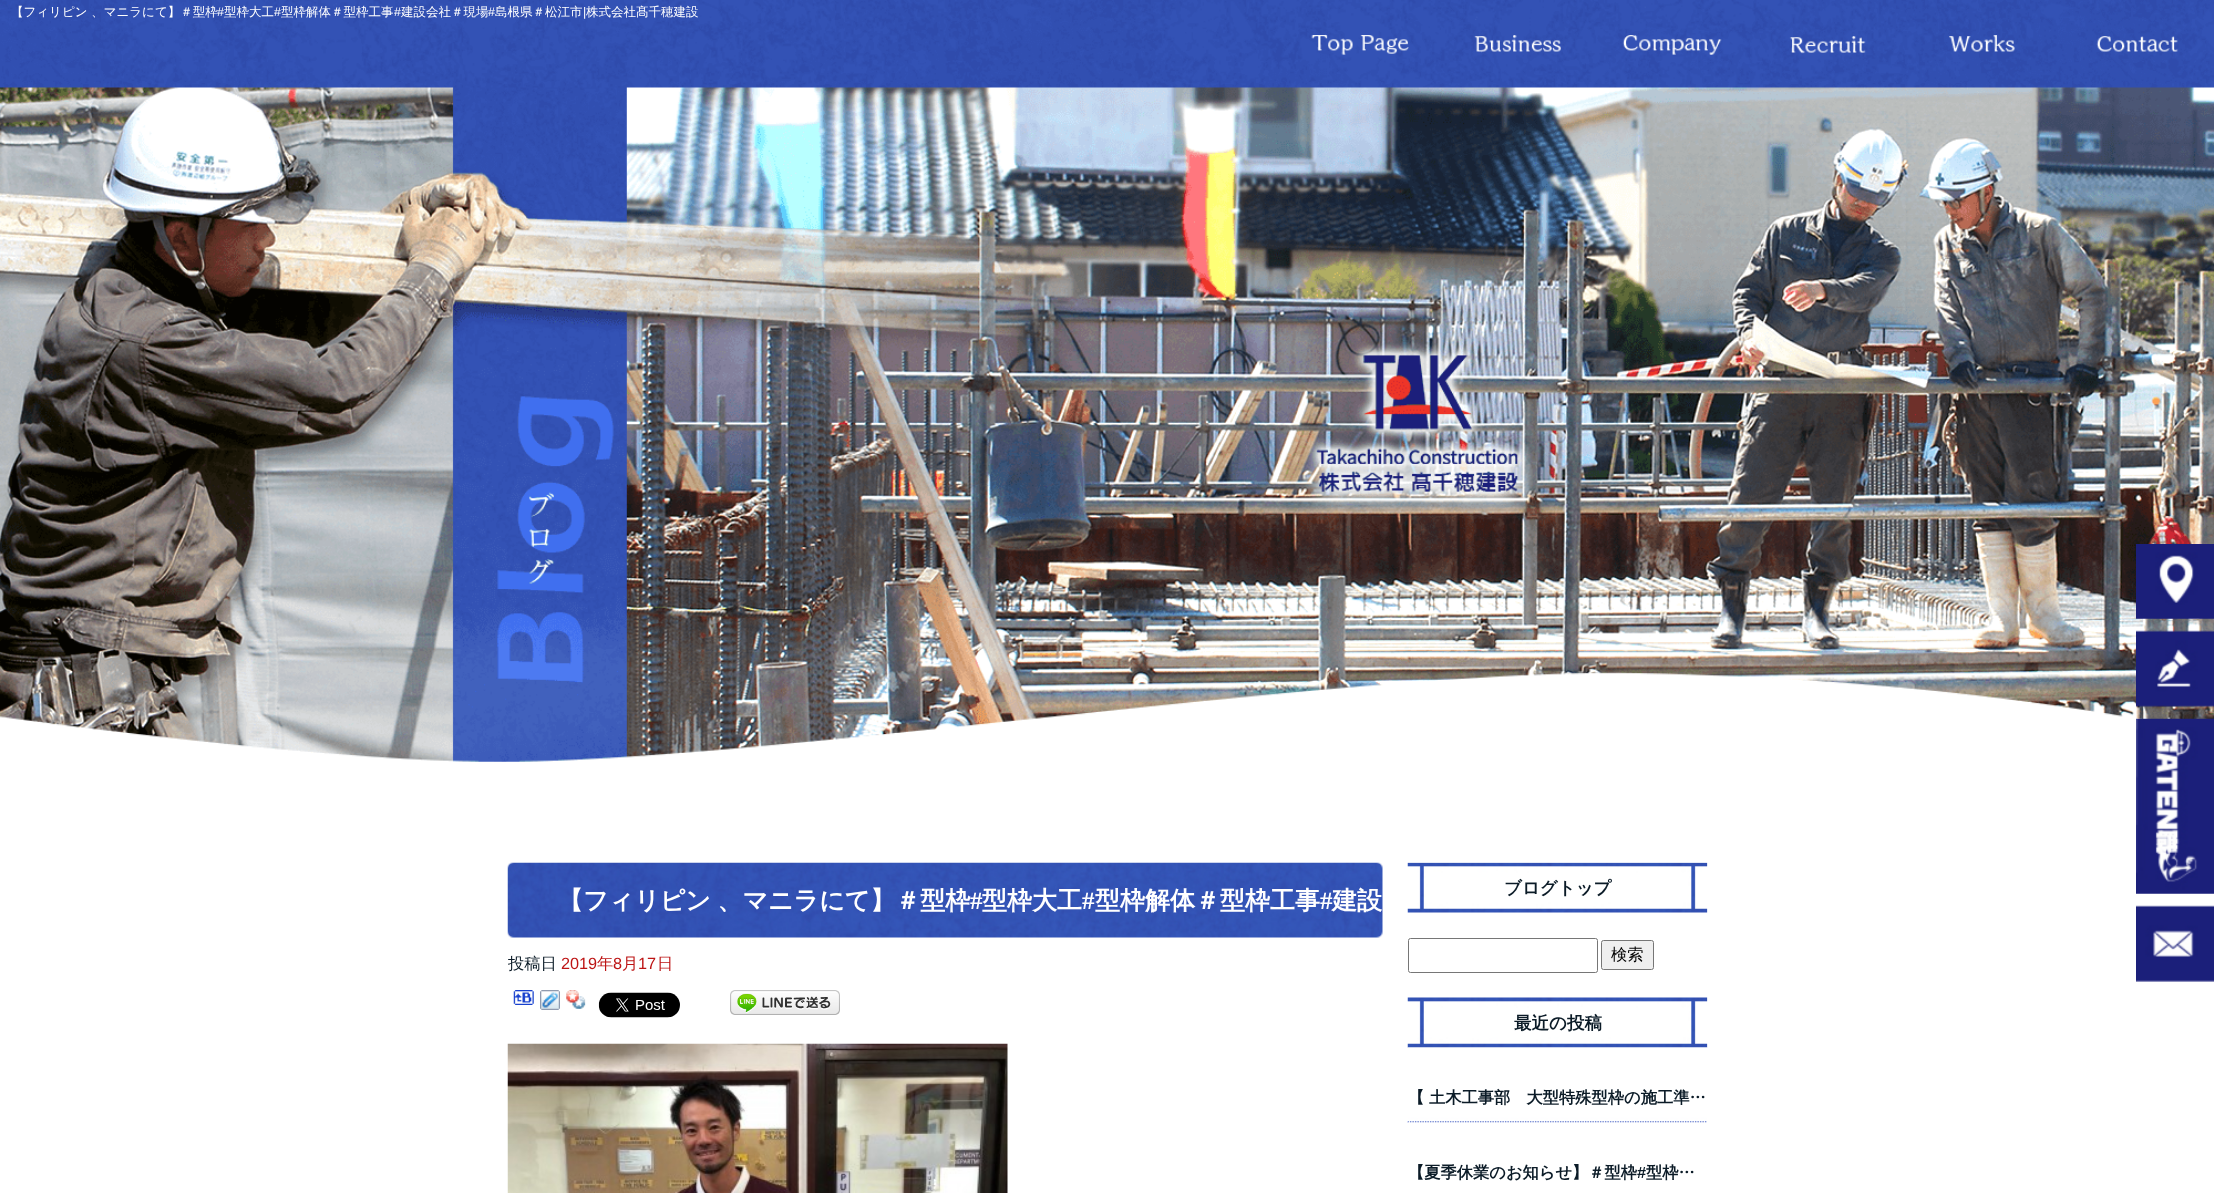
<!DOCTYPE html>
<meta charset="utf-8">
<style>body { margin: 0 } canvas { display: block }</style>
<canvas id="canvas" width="2214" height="1193"></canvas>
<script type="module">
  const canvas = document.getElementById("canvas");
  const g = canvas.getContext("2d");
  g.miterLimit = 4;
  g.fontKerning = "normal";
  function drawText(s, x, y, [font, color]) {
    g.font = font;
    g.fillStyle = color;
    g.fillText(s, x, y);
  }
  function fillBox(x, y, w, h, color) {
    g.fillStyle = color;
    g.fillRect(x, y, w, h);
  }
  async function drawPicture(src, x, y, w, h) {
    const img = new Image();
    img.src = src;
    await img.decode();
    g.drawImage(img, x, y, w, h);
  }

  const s1 = ["500 12.5px WenQuanYi Zen Hei", "#FFFFFF"];
  const s2 = ["12.5px Liberation Sans", "#FFFFFF"];
  const s3 = ["bold 25px WenQuanYi Zen Hei", "#FFFFFF"];
  const s4 = ["bold 25px Liberation Serif", "#FFFFFF"];
  const s5 = ["500 16.25px WenQuanYi Zen Hei", "#0B1B27"];
  const s6 = ["16.25px Liberation Sans", "#BD1414"];
  const s7 = ["500 16.25px WenQuanYi Zen Hei", "#BD1414"];
  const s8 = ["bold 17.5px WenQuanYi Zen Hei", "#0B1B27"];
  const s9 = ["500 16.25px WenQuanYi Zen Hei", "#000000"];
  const s10 = ["bold 16.25px WenQuanYi Zen Hei", "#0B1B27"];
  const s11 = ["bold 16.25px Liberation Sans", "#0B1B27"];

  fillBox(0, 0, 2214, 1193, "#FFFFFF");
  await drawPicture("pic1.png", 0, 0, 2214, 762);
  drawText("【フィリピン 、マニラにて】＃型枠", 11, 16, s1);
  drawText("#", 217, 16, s2);
  drawText("型枠大工", 224, 16, s1);
  drawText("#", 274, 16, s2);
  drawText("型枠解体＃型枠工事", 281, 16, s1);
  drawText("#", 394, 16, s2);
  drawText("建設会社＃現場", 401, 16, s1);
  drawText("#", 488, 16, s2);
  drawText("島根県＃松江市", 495, 16, s1);
  drawText("|", 583, 16, s2);
  drawText("株式会社髙千穂建設", 586, 16, s1);
  await drawPicture("pic2.png", 1311, 34, 98, 21);
  await drawPicture("pic3.png", 1474, 35, 87, 18);
  await drawPicture("pic4.png", 1622, 35, 100, 20);
  await drawPicture("pic5.png", 1789, 36, 77, 18);
  await drawPicture("pic6.png", 1949, 35, 66, 17);
  await drawPicture("pic7.png", 2096, 36, 83, 16);
  await drawPicture("pic8.png", 2136, 544, 78, 75);
  await drawPicture("pic9.png", 2136, 630, 78, 77);
  await drawPicture("pic10.png", 2136, 718, 78, 176);
  await drawPicture("pic11.png", 2136, 905, 78, 77);
  await drawPicture("pic12.png", 507, 862, 876, 76);
  g.wordSpacing = "-1px";
  drawText("【フィリピン 、マニラにて】＃型枠", 558, 909, s3);
  g.wordSpacing = "0px";
  drawText("#", 970, 909, s4);
  drawText("型枠大工", 982, 909, s3);
  drawText("#", 1082, 909, s4);
  drawText("型枠解体＃型枠工事", 1095, 909, s3);
  drawText("#", 1320, 909, s4);
  drawText("建設", 1332, 909, s3);
  g.save();
  g.beginPath();
  g.rect(508, 863, 1200, 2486);
  g.clip();
  drawText("投稿日", 508, 969, s5);
  g.restore();
  drawText("2019", 561, 969, s6);
  drawText("年", 597, 969, s7);
  drawText("8", 613, 969, s6);
  drawText("月", 622, 969, s7);
  drawText("17", 638, 969, s6);
  drawText("日", 657, 969, s7);
  await drawPicture("pic13.png", 513, 990, 21, 15);
  await drawPicture("pic14.png", 540, 990, 20, 20);
  await drawPicture("pic15.png", 566, 990, 20, 19);
  await drawPicture("pic16.png", 598, 992, 82, 26);
  await drawPicture("pic17.png", 730, 990, 110, 25);
  await drawPicture("pic18.png", 507, 1043, 501, 150);
  await drawPicture("pic19.png", 1407, 862, 301, 51);
  drawText("ブログトップ", 1504, 894, s8);
  g.beginPath();
  g.roundRect(1408.5, 938.5, 189, 34, 2);
  g.strokeStyle = "#767676";
  g.stroke();
  g.fillStyle = "#EFEFEF";
  g.beginPath();
  g.roundRect(1601.5, 940.5, 52, 29, 2);
  g.fill();
  g.stroke();
  drawText("検索", 1611, 960, s9);
  await drawPicture("pic20.png", 1407, 997, 301, 51);
  drawText("最近の投稿", 1514, 1029, s8);
  await drawPicture("pic21.png", 1407, 1047, 300, 76);
  drawText("【 土木工事部　大型特殊型枠の施工準…", 1408, 1103, s10);
  fillBox(1408, 1122, 299, 1, "rgba(255, 255, 255, 0.5)");
  drawText("【夏季休業のお知らせ】＃型枠", 1408, 1178, s10);
  drawText("#", 1637, 1178, s11);
  drawText("型枠…", 1646, 1178, s10);
</script>
